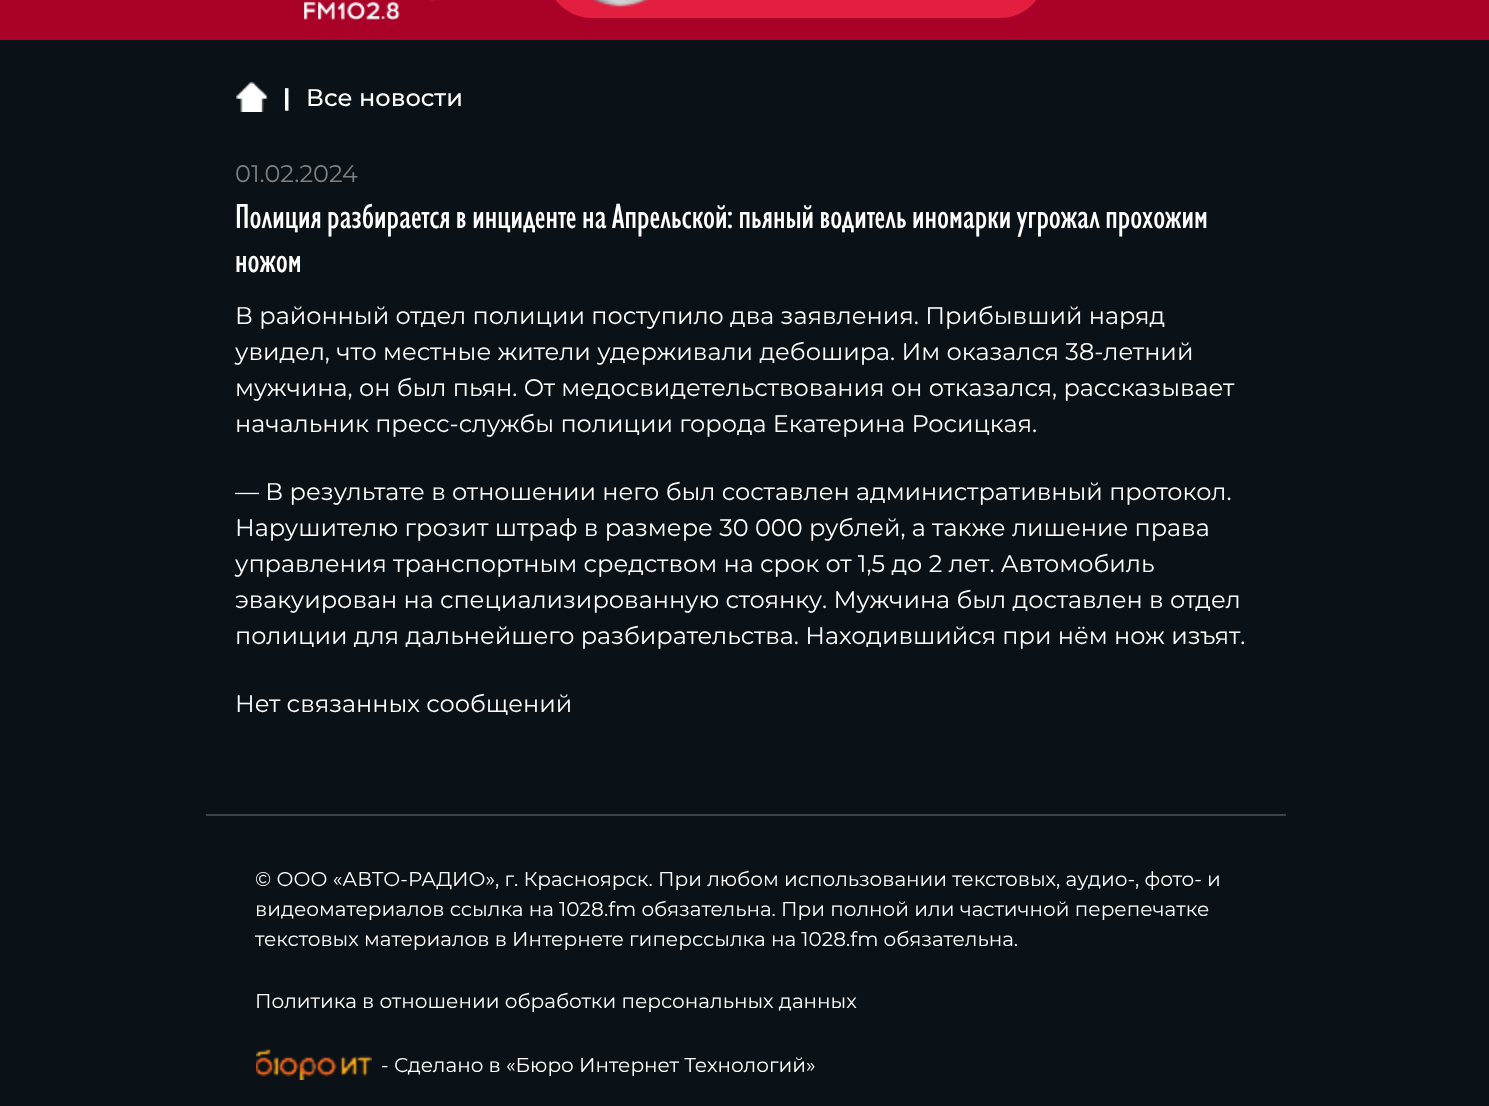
<!DOCTYPE html>
<meta charset="utf-8">
<style>body { margin: 0 } canvas { display: block }</style>
<canvas id="canvas" width="1489" height="1106"></canvas>
<script type="module">
  const canvas = document.getElementById("canvas");
  const g = canvas.getContext("2d");
  g.miterLimit = 4;
  g.fontKerning = "normal";
  function drawText(s, x, y, [font, color]) {
    g.font = font;
    g.fillStyle = color;
    g.fillText(s, x, y);
  }
  function fillBox(x, y, w, h, color) {
    g.fillStyle = color;
    g.fillRect(x, y, w, h);
  }
  function fillRounded(x, y, w, h, r, color) {
    g.fillStyle = color;
    g.beginPath();
    g.roundRect(x, y, w, h, r);
    g.fill();
  }
  async function drawPicture(src, x, y, w, h) {
    const img = new Image();
    img.src = src;
    await img.decode();
    g.drawImage(img, x, y, w, h);
  }

  const s1 = ["bold 24px Montserrat", "#FFFFFF"];
  const s2 = ["500 24px Montserrat", "#FFFFFF"];
  const s3 = ["24px Montserrat", "#808080"];
  const s4 = ["500 36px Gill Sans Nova", "#FFFFFF"];
  const s5 = ["24px Montserrat", "#FFFFFF"];
  const s6 = ["20px Montserrat", "#FFFFFF"];

  fillBox(0, 0, 1489, 1106, "#0A1117");
  fillBox(0, 0, 1489, 40, "#A90127");
  await drawPicture("pic1.png", 304, 0, 130, 20);
  fillRounded(546, -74, 500, 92, 74, "#E41E3F");
  await drawPicture("pic2.png", 591, 0, 58, 7);
  await drawPicture("pic3.png", 236, 82, 32, 30);
  drawText("|", 283, 106, s1);
  drawText("Все новости", 306, 106, s2);
  drawText("01.02.2024", 235, 182, s3);
  drawText("Полиция разбирается в инциденте на Апрельской: пьяный водитель иномарки угрожал прохожим", 235, 228, s4);
  drawText("ножом", 235, 272, s4);
  drawText("В районный отдел полиции поступило два заявления. Прибывший наряд", 235, 324, s5);
  drawText("увидел, что местные жители удерживали дебошира. Им оказался 38-летний", 235, 360, s5);
  drawText("мужчина, он был пьян. От медосвидетельствования он отказался, рассказывает", 235, 396, s5);
  drawText("начальник пресс-службы полиции города Екатерина Росицкая.", 235, 432, s5);
  drawText("— В результате в отношении него был составлен административный протокол.", 235, 500, s5);
  drawText("Нарушителю грозит штраф в размере 30 000 рублей, а также лишение права", 235, 536, s5);
  drawText("управления транспортным средством на срок от 1,5 до 2 лет. Автомобиль", 235, 572, s5);
  drawText("эвакуирован на специализированную стоянку. Мужчина был доставлен в отдел", 235, 608, s5);
  drawText("полиции для дальнейшего разбирательства. Находившийся при нём нож изъят.", 235, 644, s5);
  drawText("Нет связанных сообщений", 235, 712, s5);
  fillBox(206, 814, 1080, 2, "#3D4348");
  drawText("© ООО «АВТО-РАДИО», г. Красноярск. При любом использовании текстовых, аудио-, фото- и", 255, 886, s6);
  drawText("видеоматериалов ссылка на 1028.fm обязательна. При полной или частичной перепечатке", 255, 916, s6);
  drawText("текстовых материалов в Интернете гиперссылка на 1028.fm обязательна.", 255, 946, s6);
  drawText("Политика в отношении обработки персональных данных", 255, 1008, s6);
  await drawPicture("pic4.png", 256, 1049, 116, 31);
  drawText("- Сделано в «Бюро Интернет Технологий»", 381, 1072, s6);
</script>
